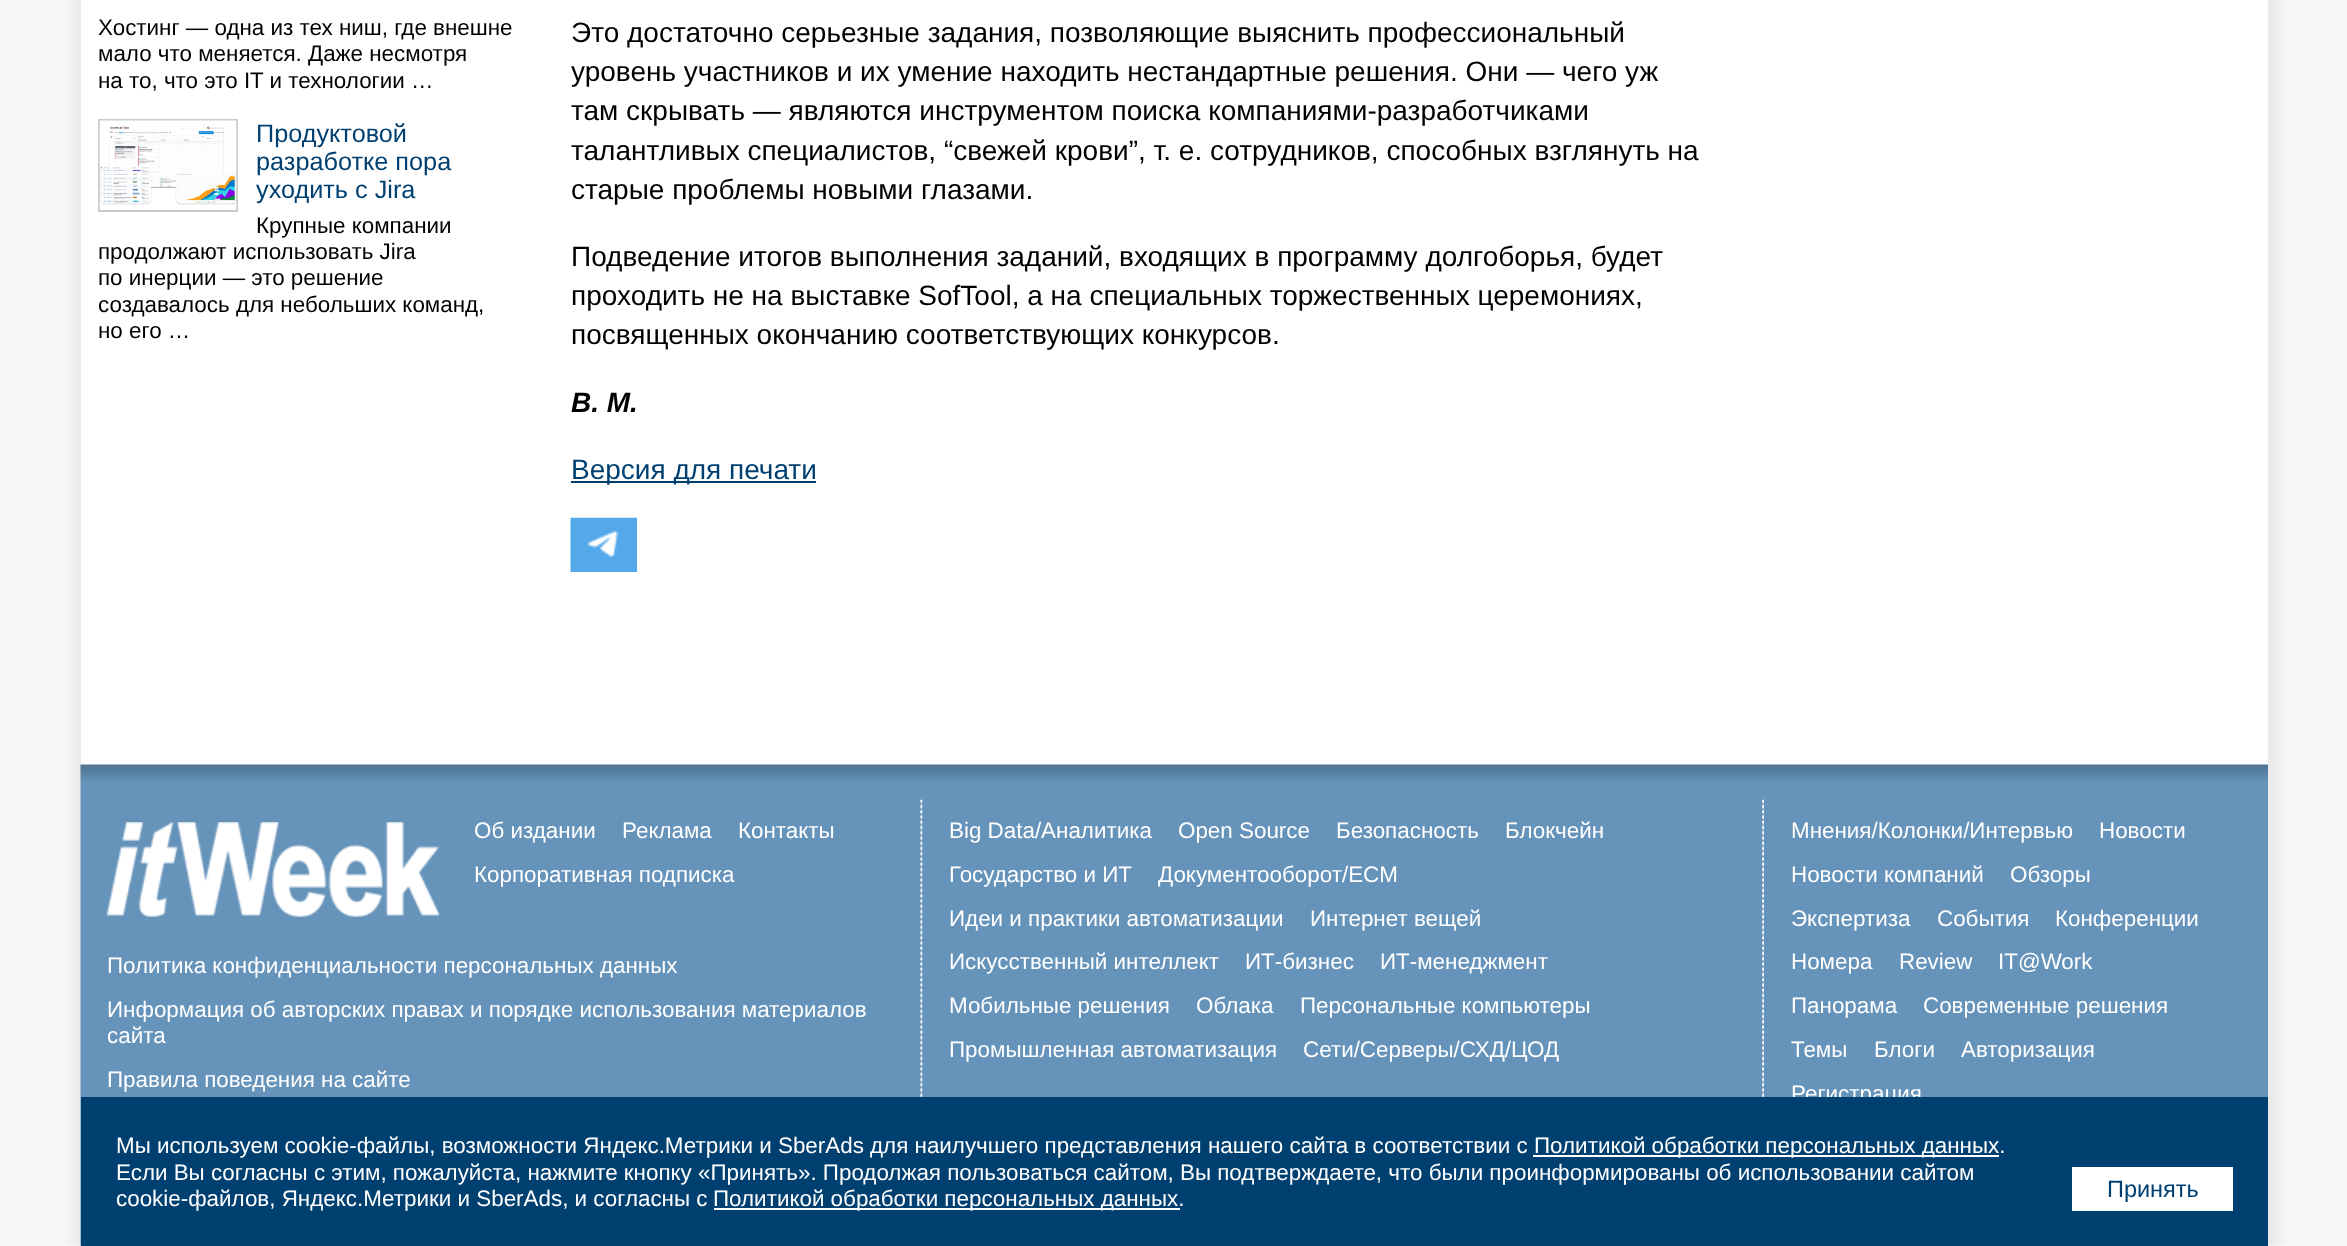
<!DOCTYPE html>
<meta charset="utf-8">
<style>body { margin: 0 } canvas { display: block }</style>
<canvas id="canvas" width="2347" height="1246"></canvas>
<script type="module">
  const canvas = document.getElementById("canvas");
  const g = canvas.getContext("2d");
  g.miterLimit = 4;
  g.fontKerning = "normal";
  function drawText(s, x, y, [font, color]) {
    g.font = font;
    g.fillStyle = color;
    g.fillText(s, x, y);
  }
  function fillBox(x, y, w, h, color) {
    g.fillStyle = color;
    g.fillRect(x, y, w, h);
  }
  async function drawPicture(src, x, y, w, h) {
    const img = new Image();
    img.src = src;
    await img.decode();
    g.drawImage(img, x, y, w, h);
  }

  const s1 = ["22.4px Liberation Sans", "#000000"];
  const s2 = ["25.25px Liberation Sans", "#004071"];
  const s3 = ["28px Liberation Sans", "#000000"];
  const s4 = ["italic bold 28px Liberation Sans", "#000000"];
  const s5 = ["28px Liberation Sans", "#004071"];
  const s6 = ["22.4px Liberation Sans", "#FFFFFF"];
  const s7 = ["23.5px Liberation Sans", "#004071"];

  fillBox(0, 0, 2347, 1246, "#FFFFFF");
  await drawPicture("pic1.png", 0, 0, 2347, 1246);
  fillBox(81, 0, 2187, 765, "#FFFFFF");
  drawText("Хостинг — одна из тех ниш, где внешне", 98, 35, s1);
  drawText("мало что меняется. Даже несмотря", 98, 61, s1);
  drawText("на то, что это IT и технологии …", 98, 88, s1);
  g.strokeStyle = "#CCCCCC";
  g.lineWidth = 2;
  g.strokeRect(99, 120, 138, 91);
  await drawPicture("pic2.png", 99, 120, 138, 90);
  drawText("Продуктовой", 256, 142, s2);
  drawText("разработке пора", 256, 170, s2);
  drawText("уходить с Jira", 256, 198, s2);
  drawText("Крупные компании", 256, 233, s1);
  drawText("продолжают использовать Jira", 98, 259, s1);
  drawText("по инерции — это решение", 98, 285, s1);
  drawText("создавалось для небольших команд,", 98, 312, s1);
  drawText("но его …", 98, 338, s1);
  drawText("Это достаточно серьезные задания, позволяющие выяснить профессиональный", 571, 42, s3);
  drawText("уровень участников и их умение находить нестандартные решения. Они — чего уж", 571, 81, s3);
  drawText("там скрывать — являются инструментом поиска компаниями-разработчиками", 571, 120, s3);
  drawText("талантливых специалистов, “свежей крови”, т. е. сотрудников, способных взглянуть на", 571, 160, s3);
  drawText("старые проблемы новыми глазами.", 571, 199, s3);
  drawText("Подведение итогов выполнения заданий, входящих в программу долгоборья, будет", 571, 266, s3);
  drawText("проходить не на выставке SofTool, а на специальных торжественных церемониях,", 571, 305, s3);
  drawText("посвященных окончанию соответствующих конкурсов.", 571, 344, s3);
  drawText("В. М.", 571, 412, s4);
  fillBox(571, 481, 245, 2, "#004071");
  drawText("Версия для печати", 571, 479, s5);
  await drawPicture("pic3.png", 570, 517, 67, 55);
  await drawPicture("pic4.png", 80, 764, 2188, 482);
  await drawPicture("pic5.png", 106, 822, 334, 95);
  drawText("Об издании", 474, 838, s6);
  drawText("Реклама", 622, 838, s6);
  drawText("Контакты", 738, 838, s6);
  drawText("Корпоративная подписка", 474, 882, s6);
  drawText("Политика конфиденциальности персональных данных", 107, 973, s6);
  drawText("Информация об авторских правах и порядке использования материалов", 107, 1017, s6);
  drawText("сайта", 107, 1043, s6);
  drawText("Правила поведения на сайте", 107, 1087, s6);
  await drawPicture("pic6.png", 920, 799, 3, 298);
  drawText("Big Data/Аналитика", 949, 838, s6);
  drawText("Open Source", 1178, 838, s6);
  drawText("Безопасность", 1336, 838, s6);
  drawText("Блокчейн", 1505, 838, s6);
  drawText("Государство и ИТ", 949, 882, s6);
  drawText("Документооборот/ECM", 1158, 882, s6);
  drawText("Идеи и практики автоматизации", 949, 926, s6);
  drawText("Интернет вещей", 1310, 926, s6);
  drawText("Искусственный интеллект", 949, 969, s6);
  drawText("ИТ-бизнес", 1245, 969, s6);
  drawText("ИТ-менеджмент", 1380, 969, s6);
  drawText("Мобильные решения", 949, 1013, s6);
  drawText("Облака", 1196, 1013, s6);
  drawText("Персональные компьютеры", 1300, 1013, s6);
  drawText("Промышленная автоматизация", 949, 1057, s6);
  drawText("Сети/Серверы/СХД/ЦОД", 1303, 1057, s6);
  await drawPicture("pic7.png", 1762, 799, 2, 298);
  drawText("Мнения/Колонки/Интервью", 1791, 838, s6);
  drawText("Новости", 2099, 838, s6);
  drawText("Новости компаний", 1791, 882, s6);
  drawText("Обзоры", 2010, 882, s6);
  drawText("Экспертиза", 1791, 926, s6);
  drawText("События", 1937, 926, s6);
  drawText("Конференции", 2055, 926, s6);
  drawText("Номера", 1791, 969, s6);
  drawText("Review", 1899, 969, s6);
  drawText("IT@Work", 1998, 969, s6);
  drawText("Панорама", 1791, 1013, s6);
  drawText("Современные решения", 1923, 1013, s6);
  drawText("Темы", 1791, 1057, s6);
  drawText("Блоги", 1874, 1057, s6);
  drawText("Авторизация", 1961, 1057, s6);
  drawText("Регистрация", 1791, 1101, s6);
  fillBox(81, 1097, 2187, 149, "#004071");
  drawText("Мы используем cookie-файлы, возможности Яндекс.Метрики и SberAds для наилучшего представления нашего сайта в соответствии с", 116, 1153, s6);
  fillBox(1533, 1155, 466, 2, "#FFFFFF");
  drawText("Политикой обработки персональных данных.", 1534, 1153, s6);
  drawText("Если Вы согласны с этим, пожалуйста, нажмите кнопку «Принять». Продолжая пользоваться сайтом, Вы подтверждаете, что были проинформированы об использовании сайтом", 116, 1180, s6);
  drawText("cookie-файлов, Яндекс.Метрики и SberAds, и согласны с", 116, 1206, s6);
  fillBox(714, 1208, 466, 2, "#FFFFFF");
  drawText("Политикой обработки персональных данных.", 713, 1206, s6);
  fillBox(2072, 1167, 161, 44, "#FFFFFF");
  drawText("Принять", 2107, 1197, s7);
</script>
